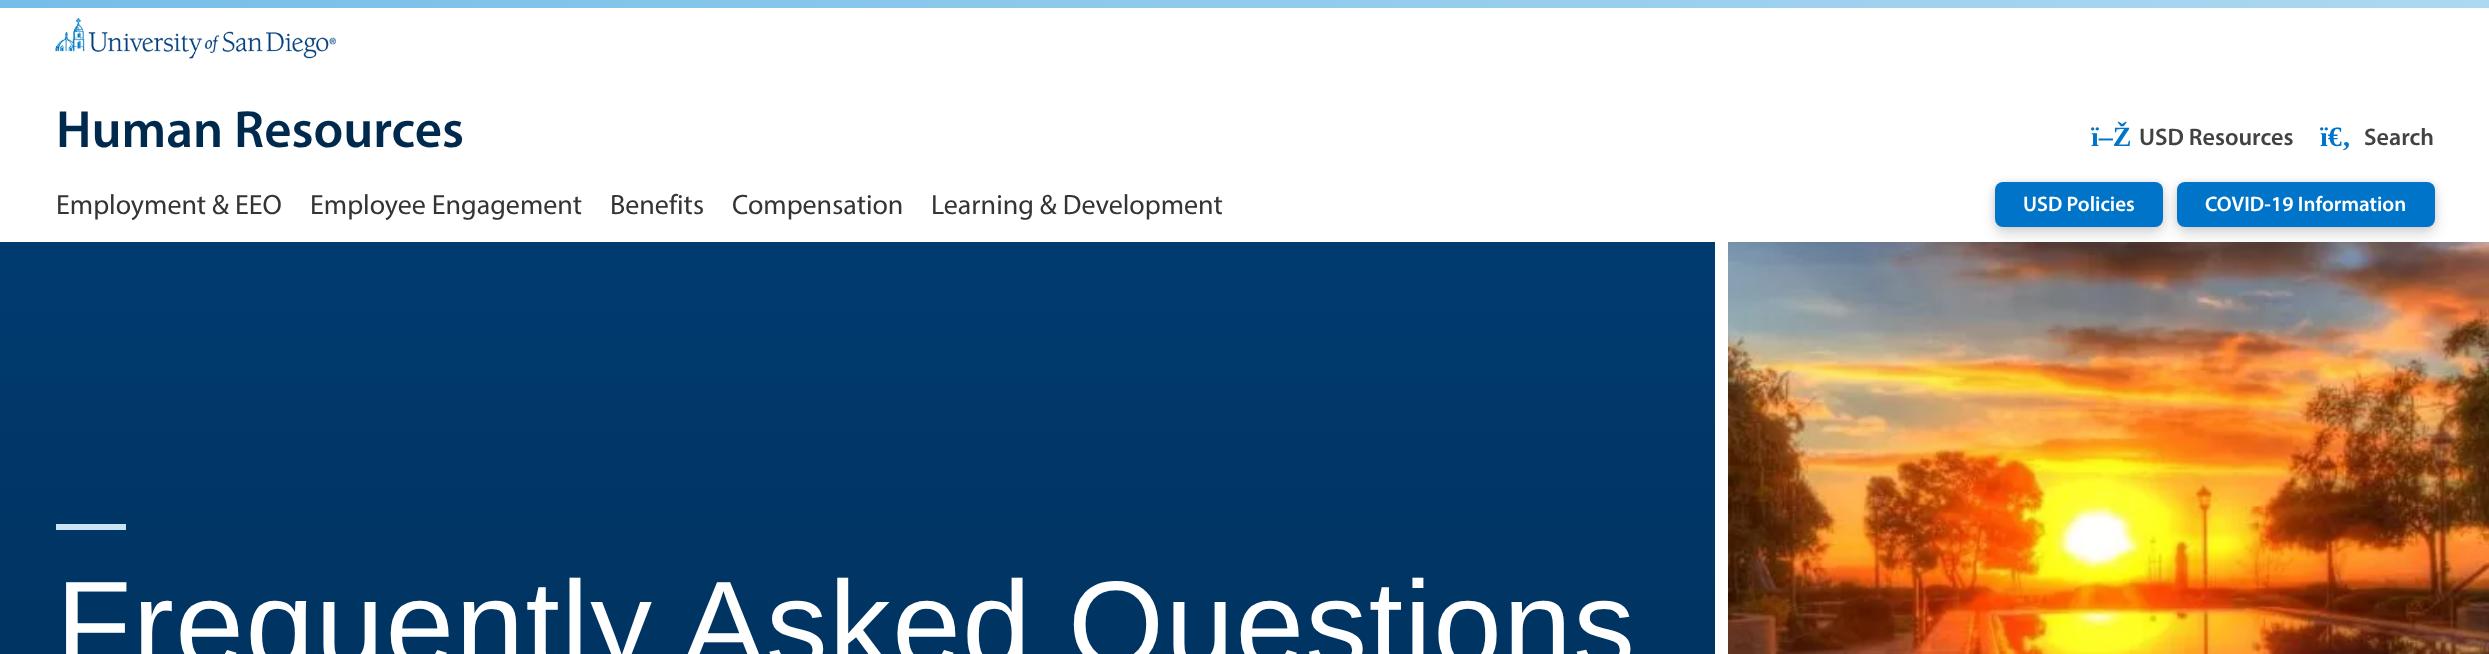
<!DOCTYPE html>
<meta charset="utf-8">
<style>body { margin: 0 } canvas { display: block }</style>
<canvas id="canvas" width="2489" height="654"></canvas>
<script type="module">
  const canvas = document.getElementById("canvas");
  const g = canvas.getContext("2d");
  g.miterLimit = 4;
  g.fontKerning = "normal";
  function drawText(s, x, y, [font, color]) {
    g.font = font;
    g.fillStyle = color;
    g.fillText(s, x, y);
  }
  function fillBox(x, y, w, h, color) {
    g.fillStyle = color;
    g.fillRect(x, y, w, h);
  }
  function fillRounded(x, y, w, h, r, color) {
    g.fillStyle = color;
    g.beginPath();
    g.roundRect(x, y, w, h, r);
    g.fill();
  }
  async function drawPicture(src, x, y, w, h) {
    const img = new Image();
    img.src = src;
    await img.decode();
    g.drawImage(img, x, y, w, h);
  }
  let gradient;

  const s1 = ["600 52.75px Myriad", "#00294E"];
  const s2 = ["bold 28px Liberation Serif", "#0074C8"];
  const s3 = ["600 24px Myriad", "#424242"];
  const s4 = ["28px Myriad", "#343434"];
  const s5 = ["600 21px Myriad", "#FFFFFF"];
  const s6 = ["123.25px Liberation Sans", "#FFFFFF"];

  fillBox(0, 0, 2489, 654, "#FFFFFF");
  gradient = g.createLinearGradient(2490, 3.8, 0, 3.7);
  gradient.addColorStop(0, "#ACD8F1");
  gradient.addColorStop(1, "#75BEE9");
  g.fillStyle = gradient;
  g.fillRect(0, 0, 2489, 8);
  await drawPicture("pic1.png", 55, 18, 281, 41);
  drawText("Human Resources", 56, 147, s1);
  drawText("ï–Ž", 2091, 146, s2);
  drawText("USD Resources", 2139, 145, s3);
  drawText("ï€‚", 2320, 146, s2);
  drawText("Search", 2364, 145, s3);
  drawText("Employment & EEO", 56, 214, s4);
  drawText("Employee Engagement", 310, 214, s4);
  drawText("Benefits", 610, 214, s4);
  drawText("Compensation", 732, 214, s4);
  drawText("Learning & Development", 931, 214, s4);
  await drawPicture("pic2.png", 1728, 242, 761, 412);
  g.fillStyle = "rgba(0, 0, 0, 0.15)";
  g.filter = "blur(7px)";
  g.beginPath();
  g.roundRect(1995, 189, 168, 45, 8);
  g.fill();
  g.filter = "none";
  g.fillStyle = "rgba(0, 0, 0, 0.1)";
  g.filter = "blur(3.5px)";
  g.beginPath();
  g.roundRect(1995, 182, 168, 45, 8);
  g.fill();
  g.filter = "none";
  fillRounded(1995, 182, 168, 45, 8, "#0074C8");
  drawText("USD Policies", 2023, 211, s5);
  g.fillStyle = "rgba(0, 0, 0, 0.15)";
  g.filter = "blur(7px)";
  g.beginPath();
  g.roundRect(2177, 189, 258, 45, 8);
  g.fill();
  g.filter = "none";
  g.fillStyle = "rgba(0, 0, 0, 0.1)";
  g.filter = "blur(3.5px)";
  g.beginPath();
  g.roundRect(2177, 182, 258, 45, 8);
  g.fill();
  g.filter = "none";
  fillRounded(2177, 182, 258, 45, 8, "#0074C8");
  drawText("COVID-19 Information", 2205, 211, s5);
  gradient = g.createLinearGradient(857, 241, 857, 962);
  gradient.addColorStop(0, "#003B70");
  gradient.addColorStop(1, "#002E57");
  g.fillStyle = gradient;
  g.fillRect(0, 242, 1715, 412);
  fillBox(56, 524, 70, 6, "#CCE3F4");
  g.letterSpacing = "1.5px";
  drawText("Frequently Asked Questions", 56, 667, s6);
</script>
